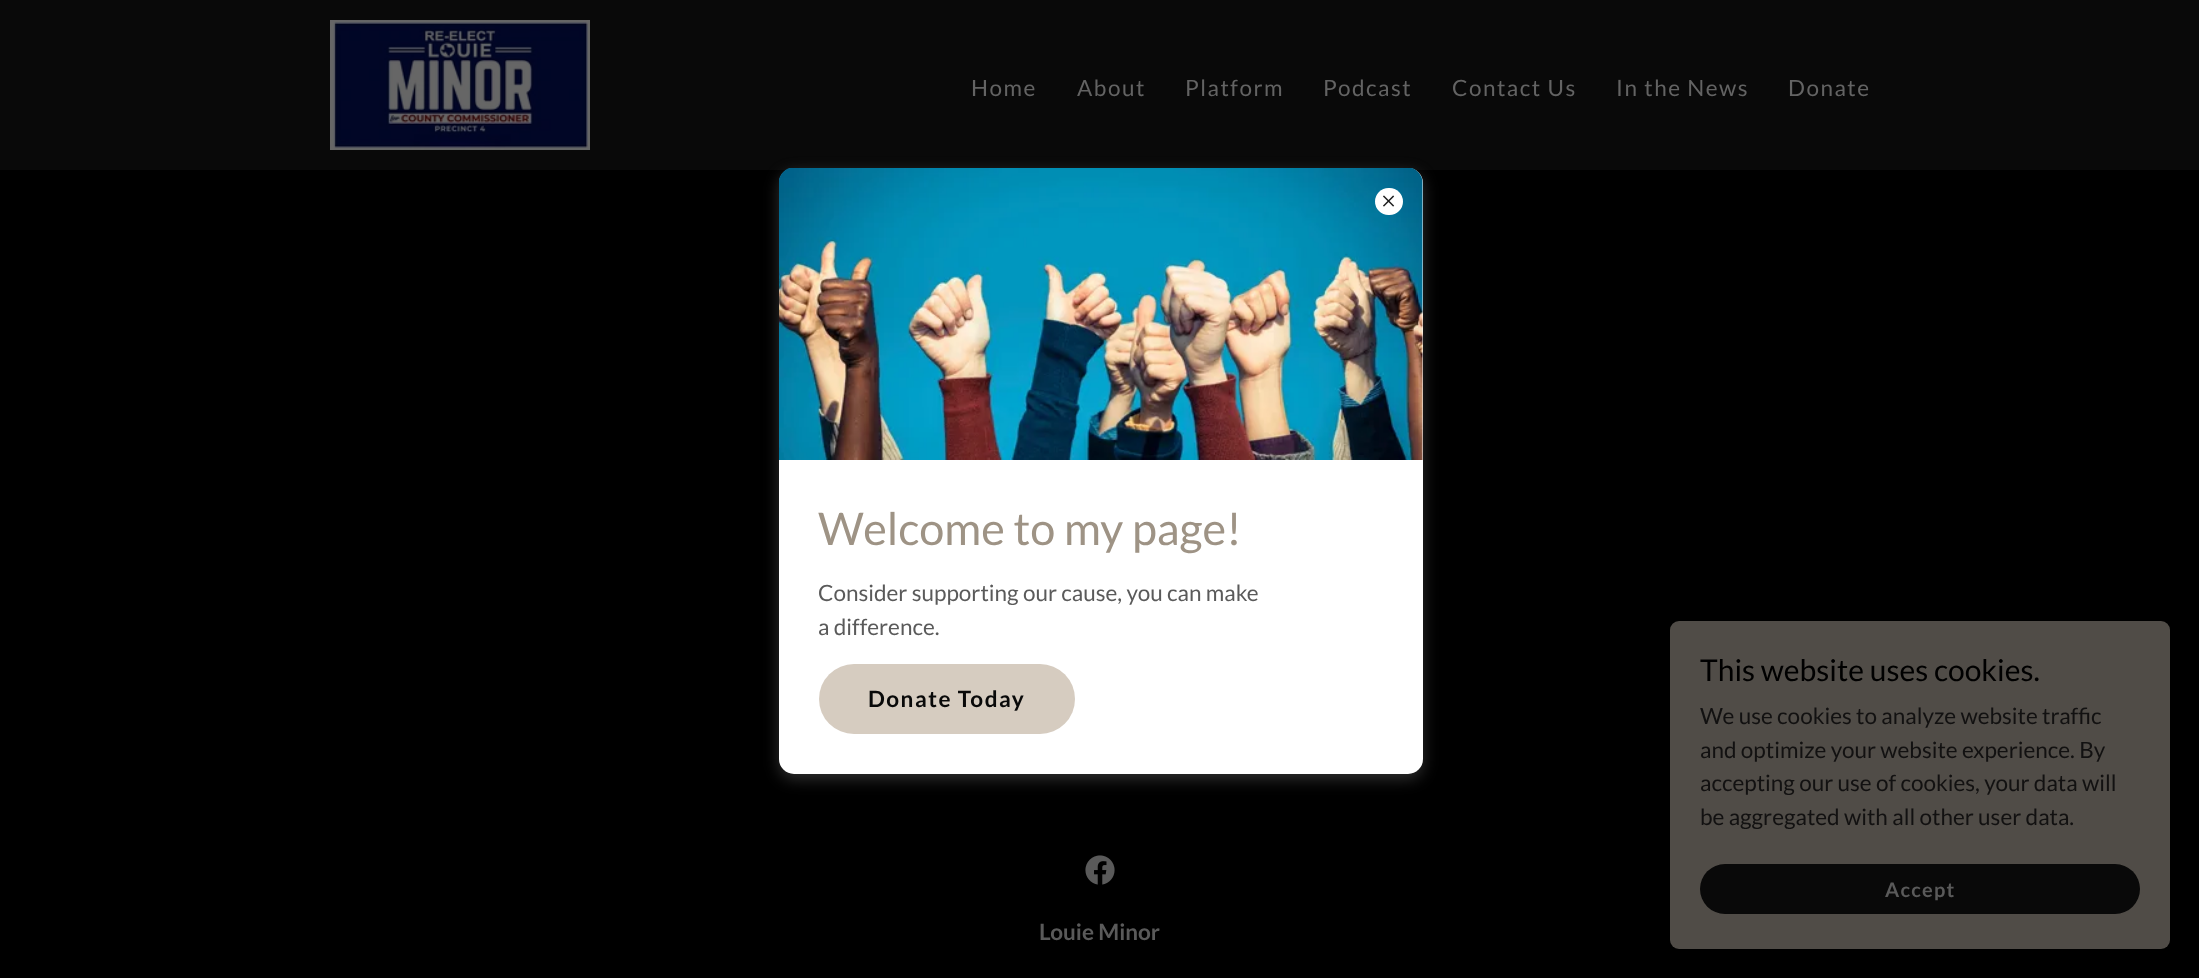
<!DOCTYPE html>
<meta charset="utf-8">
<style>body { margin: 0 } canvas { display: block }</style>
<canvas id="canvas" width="2199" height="978"></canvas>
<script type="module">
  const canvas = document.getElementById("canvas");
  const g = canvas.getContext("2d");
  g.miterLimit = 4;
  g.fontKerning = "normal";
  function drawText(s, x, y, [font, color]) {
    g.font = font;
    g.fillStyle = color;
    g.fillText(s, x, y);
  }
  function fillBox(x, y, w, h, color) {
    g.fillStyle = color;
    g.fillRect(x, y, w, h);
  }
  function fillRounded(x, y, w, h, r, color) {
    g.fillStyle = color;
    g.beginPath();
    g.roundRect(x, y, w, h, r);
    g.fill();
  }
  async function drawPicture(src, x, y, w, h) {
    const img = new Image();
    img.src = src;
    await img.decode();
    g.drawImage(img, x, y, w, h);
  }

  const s1 = ["22.5px Lato", "#636363"];
  const s2 = ["45px Lato", "#9E9385"];
  const s3 = ["22.5px Lato", "#5A5A5A"];
  const s4 = ["bold 22.5px Lato", "#090909"];
  const s5 = ["30px Lato", "#000000"];
  const s6 = ["22.5px Lato", "#121111"];
  const s7 = ["bold 20px Lato", "#5A5A5A"];
  const s8 = ["bold 22.5px Lato", "#5A5A5A"];

  fillBox(0, 0, 2199, 978, "#000000");
  fillBox(0, 0, 2199, 170, "#090909");
  await drawPicture("pic1.png", 330, 20, 260, 130);
  g.letterSpacing = "1.5px";
  drawText("Home", 971, 96, s1);
  drawText("About", 1077, 96, s1);
  drawText("Platform", 1185, 96, s1);
  drawText("Podcast", 1323, 96, s1);
  drawText("Contact Us", 1452, 96, s1);
  drawText("In the News", 1616, 96, s1);
  drawText("Donate", 1788, 96, s1);
  g.fillStyle = "rgba(117, 117, 117, 0.4)";
  g.filter = "blur(7.5px)";
  g.beginPath();
  g.roundRect(779, 173, 644, 606, 15);
  g.fill();
  g.filter = "none";
  fillRounded(779, 168, 644, 606, 15, "#FFFFFF");
  await drawPicture("pic3.png", 779, 168, 644, 292);
  fillRounded(1375, 188, 28, 27, 13.5, "#FFFFFF");
  await drawPicture("pic2.png", 1383, 195, 12, 12);
  g.letterSpacing = "0px";
  drawText("Welcome to my page!", 818, 545, s2);
  drawText("Consider supporting our cause, you can make", 818, 601, s3);
  drawText("a difference.", 818, 635, s3);
  fillRounded(819, 664, 256, 70, 35, "#D6CCC0");
  g.letterSpacing = "1.5px";
  drawText("Donate Today", 868, 707, s4);
  fillRounded(1670, 621, 500, 328, 9, "#504C47");
  g.letterSpacing = "0px";
  drawText("This website uses cookies.", 1700, 681, s5);
  drawText("We use cookies to analyze website traffic", 1700, 724, s6);
  drawText("and optimize your website experience. By", 1700, 758, s6);
  drawText("accepting our use of cookies, your data will", 1700, 791, s6);
  drawText("be aggregated with all other user data.", 1700, 825, s6);
  fillRounded(1700, 864, 440, 50, 25, "#090909");
  g.letterSpacing = "1.25px";
  drawText("Accept", 1885, 897, s7);
  await drawPicture("pic4.png", 1085, 855, 30, 30);
  g.letterSpacing = "0px";
  drawText("Louie Minor", 1039, 940, s8);
</script>
